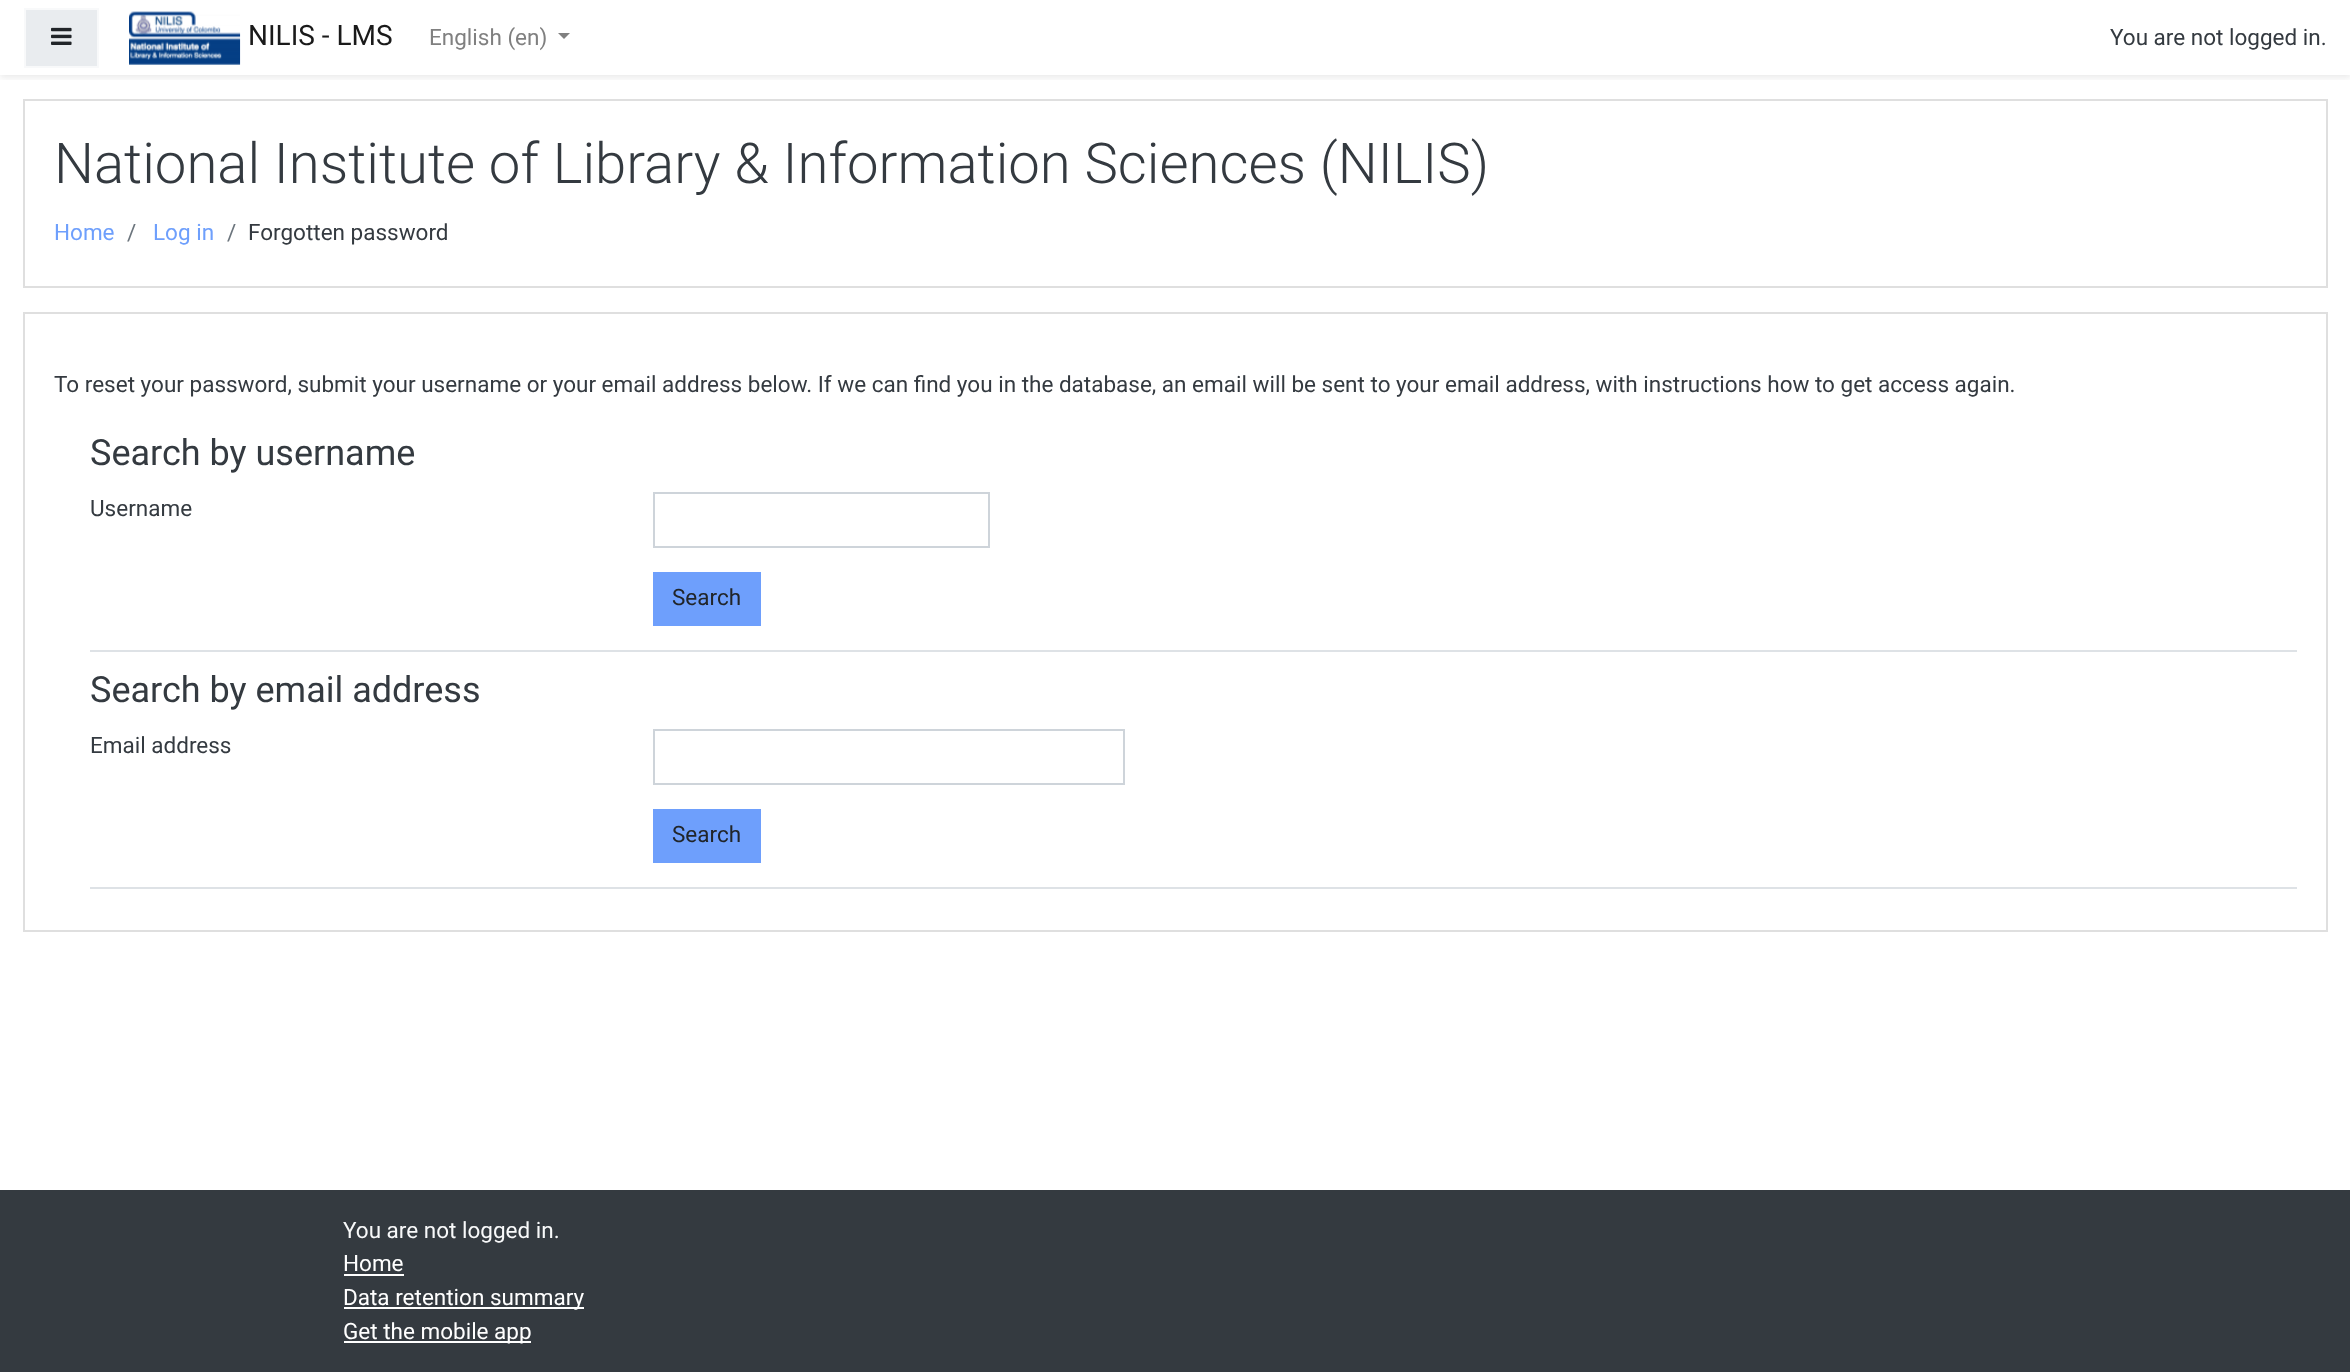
<!DOCTYPE html>
<meta charset="utf-8">
<style>body { margin: 0 } canvas { display: block }</style>
<canvas id="canvas" width="2350" height="1372"></canvas>
<script type="module">
  const canvas = document.getElementById("canvas");
  const g = canvas.getContext("2d");
  g.miterLimit = 4;
  g.fontKerning = "normal";
  function drawText(s, x, y, [font, color]) {
    g.font = font;
    g.fillStyle = color;
    g.fillText(s, x, y);
  }
  function fillBox(x, y, w, h, color) {
    g.fillStyle = color;
    g.fillRect(x, y, w, h);
  }
  async function drawPicture(src, x, y, w, h) {
    const img = new Image();
    img.src = src;
    await img.decode();
    g.drawImage(img, x, y, w, h);
  }

  const s1 = ["28px Roboto", "#1A1A1A"];
  const s2 = ["22.5px Roboto", "#808080"];
  const s3 = ["22.5px Roboto", "#343A40"];
  const s4 = ["300 56.25px Roboto", "#343A40"];
  const s5 = ["22.5px Roboto", "#6E9FFC"];
  const s6 = ["22.5px Roboto", "#6C757D"];
  const s7 = ["36px Roboto", "#343A40"];
  const s8 = ["22.5px Roboto", "#212529"];
  const s9 = ["22.5px Roboto", "#F8F9FA"];
  const s10 = ["22.5px Roboto", "#FFFFFF"];

  fillBox(0, 0, 2350, 1372, "#FFFFFF");
  g.save();
  g.beginPath();
  g.rect(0, 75, 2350, 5);
  g.clip();
  g.fillStyle = "rgba(0, 0, 0, 0.08)";
  g.filter = "blur(3px)";
  g.beginPath();
  g.rect(0, 3, 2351, 75);
  g.fill();
  g.filter = "none";
  g.restore();
  g.fillStyle = "#E9ECEF";
  g.beginPath();
  g.rect(25, 9, 73, 58);
  g.fill();
  g.strokeStyle = "#F8F9FA";
  g.lineWidth = 2;
  g.stroke();
  await drawPicture("pic1.png", 51, 27, 21, 18);
  await drawPicture("pic2.png", 129, 11, 112, 54);
  drawText("NILIS - LMS", 248, 45, s1);
  drawText("English (en)", 429, 45, s2);
  g.beginPath();
  g.moveTo(558, 33);
  g.lineTo(570, 33);
  g.lineTo(564, 39);
  g.closePath();
  g.fill();
  drawText("You are not logged in.", 2110, 45, s3);
  g.strokeStyle = "#DFDFDF";
  g.strokeRect(24, 100, 2303, 187);
  drawText("National Institute of Library & Information Sciences (NILIS)", 54, 183, s4);
  drawText("Home", 54, 240, s5);
  drawText("/", 127, 240, s6);
  drawText("Log in", 153, 240, s5);
  drawText("/", 227, 240, s6);
  drawText("Forgotten password", 248, 240, s3);
  g.strokeRect(24, 313, 2303, 618);
  drawText("To reset your password, submit your username or your email address below. If we can find you in the database, an email will be sent to your email address, with instructions how to get access again.", 54, 392, s3);
  fillBox(90, 650, 2207, 2, "#DEE2E6");
  drawText("Search by username", 90, 465, s7);
  drawText("Username", 90, 516, s3);
  g.strokeStyle = "#CED4DA";
  g.strokeRect(654, 493, 335, 54);
  fillBox(653, 572, 108, 54, "#6E9FFC");
  drawText("Search", 672, 605, s8);
  fillBox(90, 887, 2207, 2, "#DEE2E6");
  drawText("Search by email address", 90, 702, s7);
  drawText("Email address", 90, 753, s3);
  g.strokeRect(654, 730, 470, 54);
  fillBox(653, 809, 108, 54, "#6E9FFC");
  drawText("Search", 672, 842, s8);
  fillBox(0, 1190, 2350, 182, "#343A40");
  drawText("You are not logged in.", 343, 1238, s9);
  drawText("Home", 343, 1271, s10);
  fillBox(344, 1274, 60, 2, "#FFFFFF");
  fillBox(344, 1307, 240, 2, "#FFFFFF");
  drawText("Data retention summary", 343, 1305, s10);
  fillBox(344, 1341, 187, 2, "#FFFFFF");
  drawText("Get the mobile app", 343, 1339, s10);
</script>
